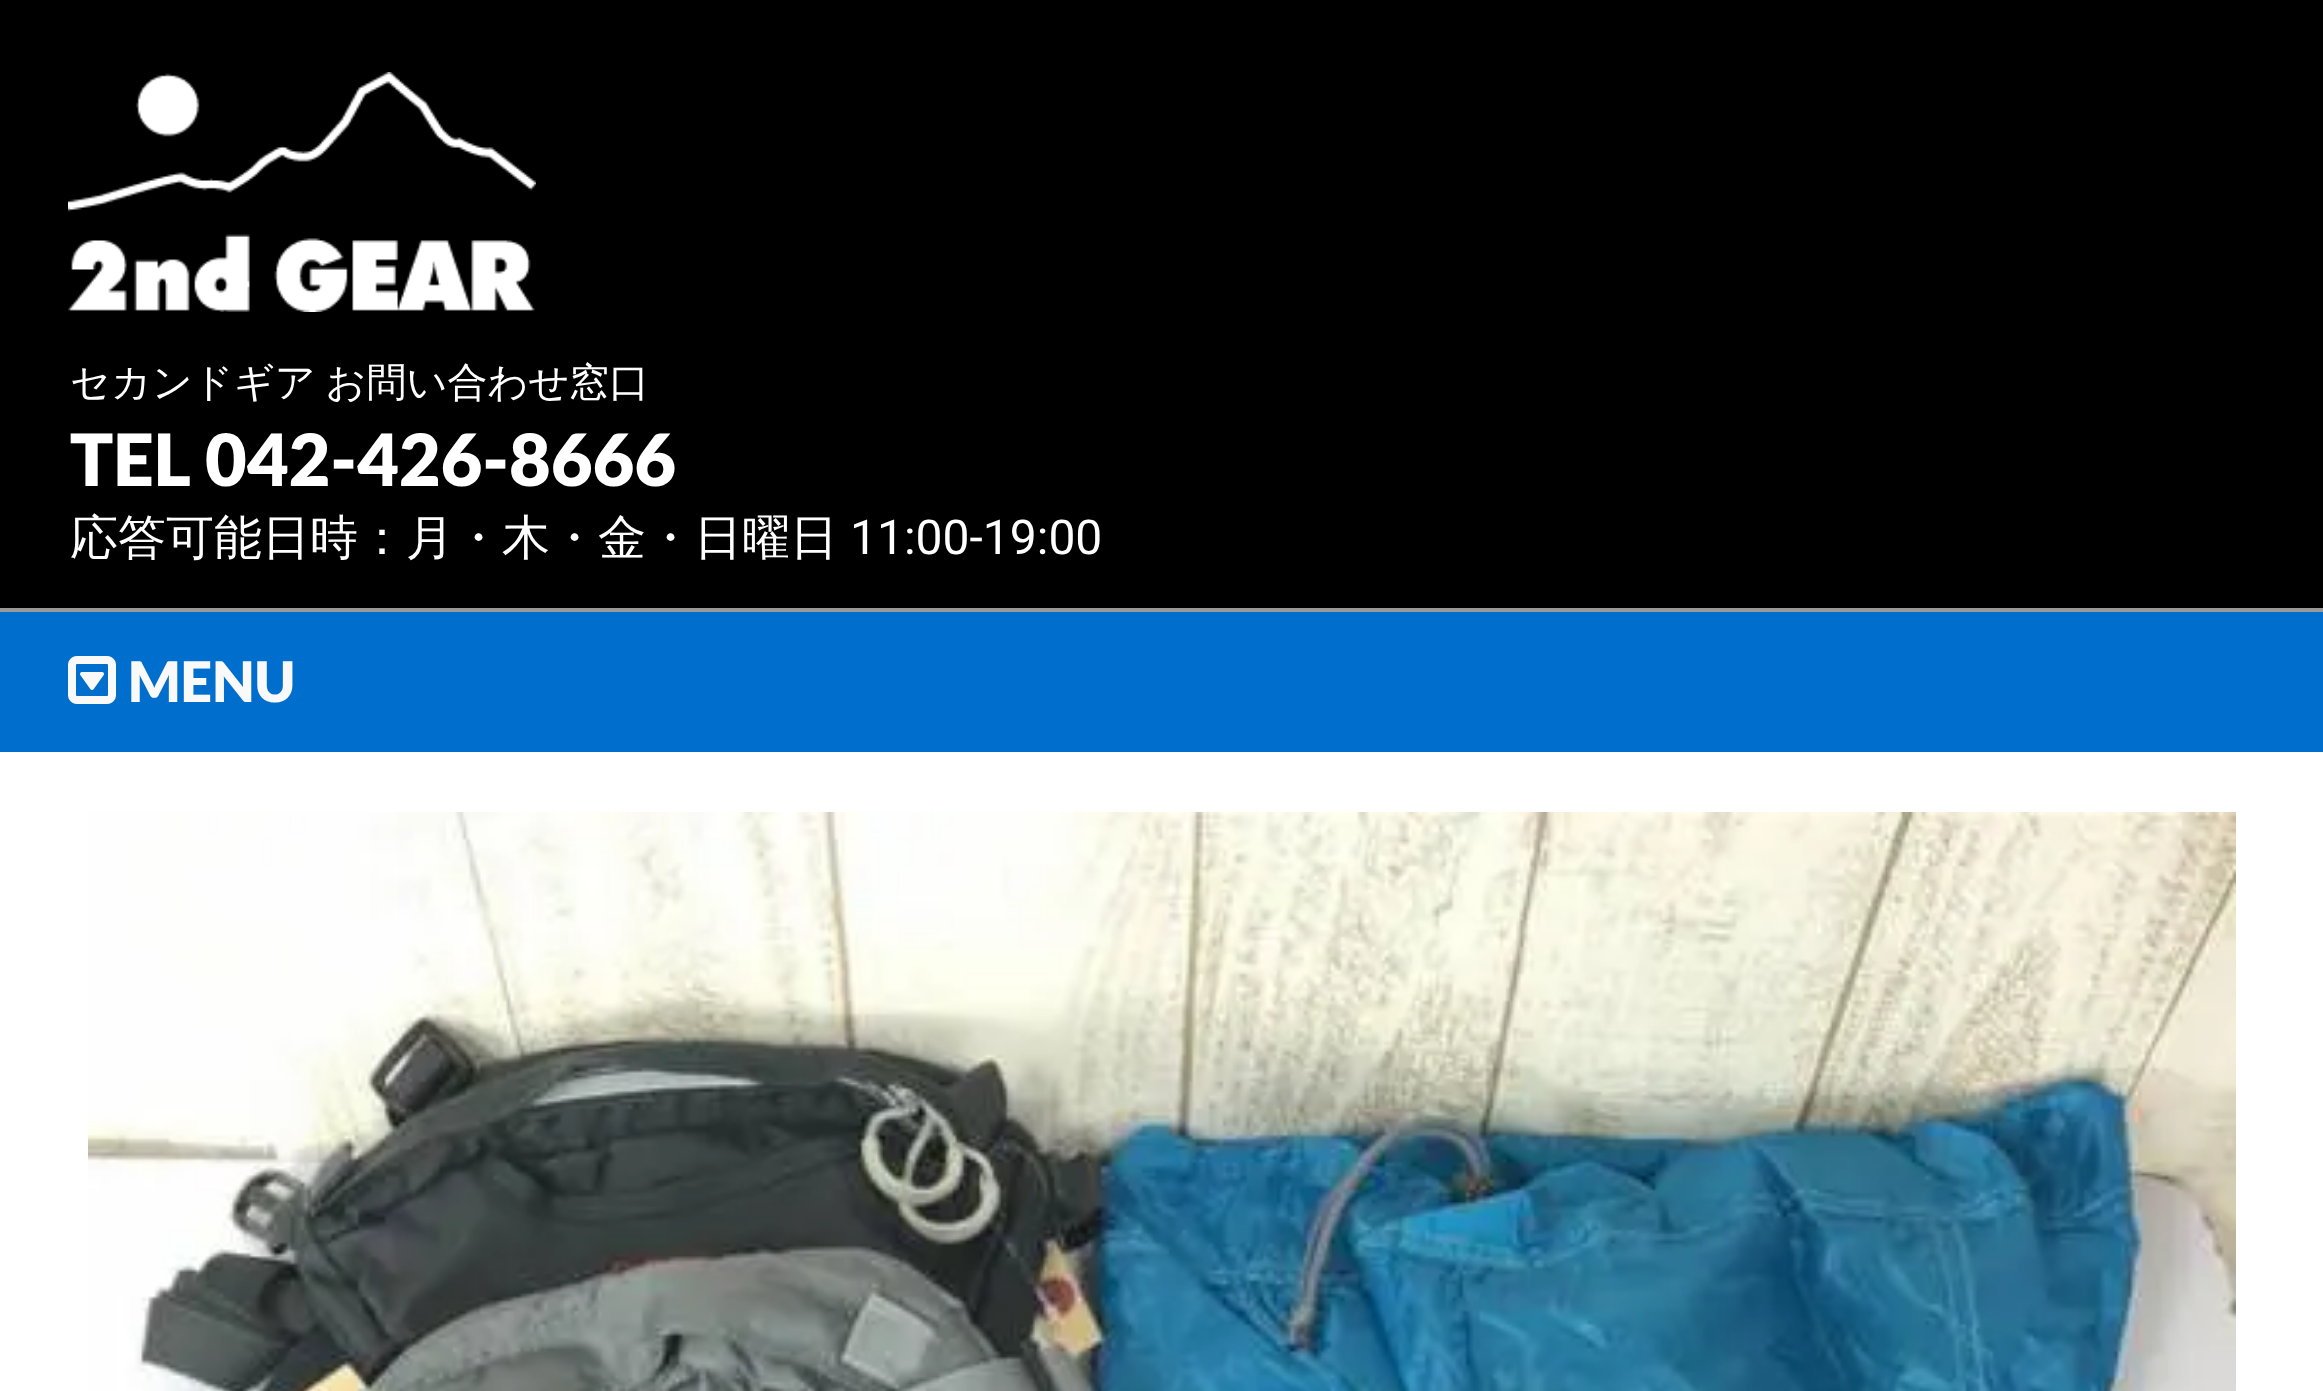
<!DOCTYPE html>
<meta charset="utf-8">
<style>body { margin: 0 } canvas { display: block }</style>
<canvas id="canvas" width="2323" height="1391"></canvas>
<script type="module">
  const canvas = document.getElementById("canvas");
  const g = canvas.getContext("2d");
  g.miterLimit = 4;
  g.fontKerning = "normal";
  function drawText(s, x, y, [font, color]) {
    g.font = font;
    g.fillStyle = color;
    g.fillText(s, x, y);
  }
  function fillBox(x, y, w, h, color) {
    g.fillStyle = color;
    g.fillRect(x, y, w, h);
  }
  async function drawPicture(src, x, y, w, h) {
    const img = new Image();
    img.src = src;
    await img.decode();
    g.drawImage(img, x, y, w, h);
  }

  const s1 = ["500 40px WenQuanYi Zen Hei", "#FFFFFF"];
  const s2 = ["900 72px Lato", "#FFFFFF"];
  const s3 = ["500 48px WenQuanYi Zen Hei", "#FFFFFF"];
  const s4 = ["48px Roboto", "#FFFFFF"];
  const s5 = ["900 56px Lato", "#F9F9F9"];

  fillBox(0, 0, 2323, 1391, "#FFFFFF");
  fillBox(0, 0, 2323, 608, "#000000");
  await drawPicture("pic1.png", 68, 72, 468, 240);
  g.wordSpacing = "-2px";
  drawText("セカンドギア お問い合わせ窓口", 70, 396, s1);
  g.wordSpacing = "0px";
  drawText("TEL 042-426-8666", 70, 486, s2);
  drawText("応答可能日時：月・木・金・日曜日", 70, 554, s3);
  drawText("11:00-19:00", 850, 554, s4);
  fillBox(0, 608, 2323, 4, "#999999");
  fillBox(0, 612, 2323, 140, "#006ECC");
  await drawPicture("pic2.png", 68, 656, 48, 48);
  drawText("MENU", 128, 702, s5);
  await drawPicture("pic3.png", 88, 812, 2148, 579);
</script>
